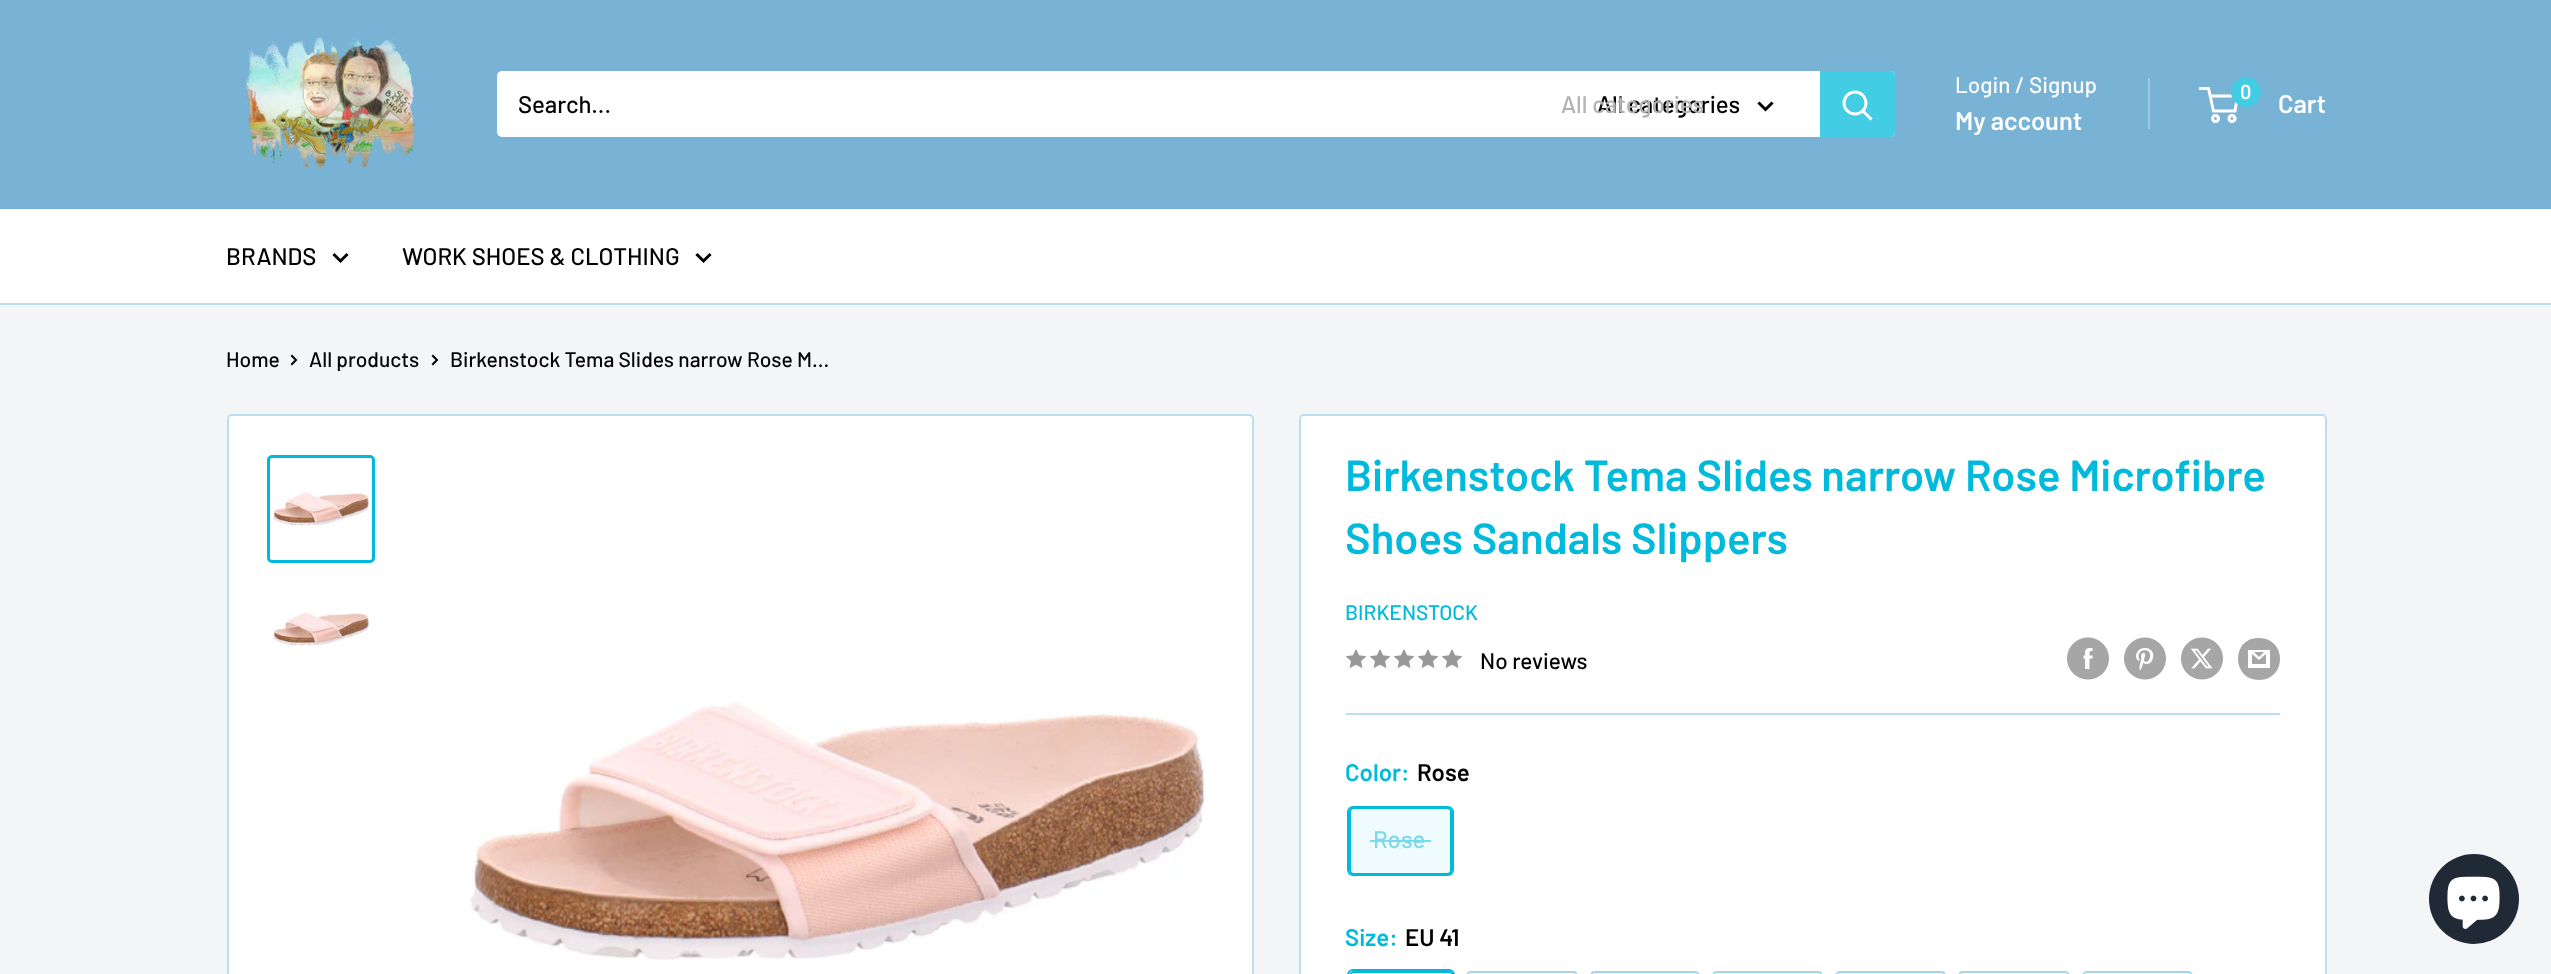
<!DOCTYPE html>
<meta charset="utf-8">
<style>body { margin: 0 } canvas { display: block }</style>
<canvas id="canvas" width="2551" height="974"></canvas>
<script type="module">
  const canvas = document.getElementById("canvas");
  const g = canvas.getContext("2d");
  g.miterLimit = 4;
  g.fontKerning = "normal";
  function drawText(s, x, y, [font, color]) {
    g.font = font;
    g.fillStyle = color;
    g.fillText(s, x, y);
  }
  function fillBox(x, y, w, h, color) {
    g.fillStyle = color;
    g.fillRect(x, y, w, h);
  }
  function fillRounded(x, y, w, h, r, color) {
    g.fillStyle = color;
    g.beginPath();
    g.roundRect(x, y, w, h, r);
    g.fill();
  }
  async function drawPicture(src, x, y, w, h) {
    const img = new Image();
    img.src = src;
    await img.decode();
    g.drawImage(img, x, y, w, h);
  }

  const s1 = ["500 24px Barlow", "#000000"];
  const s2 = ["500 24px Barlow", "#B2B2B2"];
  const s3 = ["500 22.5px Barlow", "#FDFDFD"];
  const s4 = ["600 25.5px Barlow", "#FDFDFD"];
  const s5 = ["600 20px Barlow", "#FDFDFD"];
  const s6 = ["500 21px Barlow", "#000000"];
  const s7 = ["600 43.5px Barlow", "#00BADB"];
  const s8 = ["500 21px Barlow", "#00BADB"];
  const s9 = ["500 22.5px Barlow", "#000000"];
  const s10 = ["600 24px Barlow", "#00BADB"];
  const s11 = ["600 24px Barlow", "#000000"];
  const s12 = ["500 24px Barlow", "#78DAEC"];

  fillBox(0, 0, 2551, 974, "#F3F5F6");
  fillBox(0, 0, 2551, 209, "#78B3D5");
  await drawPicture("pic1.png", 244, 37, 171, 133);
  fillRounded(497, 71, 1398, 66, 5, "#FFFFFF");
  drawText("Search...", 518, 113, s1);
  drawText("All categories", 1597, 113, s1);
  drawText("All categories", 1561, 113, s2);
  g.beginPath();
  g.moveTo(1771.5, 103.5);
  g.lineTo(1765.5, 109.5);
  g.lineTo(1759.5, 103.5);
  g.strokeStyle = "#000000";
  g.lineWidth = 3;
  g.lineCap = "square";
  g.stroke();
  g.fillStyle = "#42CDE5";
  g.beginPath();
  g.roundRect(1820, 71, 75, 66, [0, 5, 5, 0]);
  g.fill();
  g.beginPath();
  g.moveTo(1870.5, 118.5);
  g.lineTo(1863, 111);
  g.strokeStyle = "#FFFFFF";
  g.stroke();
  g.beginPath();
  g.arc(1855, 103, 11, 0, Math.PI * 2);
  g.stroke();
  drawText("Login / Signup", 1955, 93, s3);
  fillBox(2148, 78, 2, 51, "#A0C9E1");
  drawText("My account", 1955, 130, s4);
  g.beginPath();
  g.arc(2215.5, 118.5, 3, 0, Math.PI * 2);
  g.stroke();
  g.beginPath();
  g.arc(2232, 118.5, 3, 0, Math.PI * 2);
  g.stroke();
  g.beginPath();
  g.moveTo(2210, 96);
  g.lineTo(2237.5, 96);
  g.lineTo(2235, 111);
  g.lineTo(2213.5, 111);
  g.lineTo(2208.5, 88.5);
  g.lineTo(2199, 88.5);
  g.lineCap = "butt";
  g.stroke();
  g.fillStyle = "#42CDE5";
  g.beginPath();
  g.arc(2246, 92, 15, 0, Math.PI * 2);
  g.fill();
  drawText("0", 2240, 99, s5);
  drawText("Cart", 2278, 113, s4);
  fillBox(0, 209, 2551, 94, "#FFFFFF");
  fillBox(0, 303, 2551, 2, "#BADDEF");
  drawText("BRANDS", 226, 265, s1);
  g.beginPath();
  g.moveTo(346.5, 255);
  g.lineTo(340.5, 261);
  g.lineTo(334.5, 255);
  g.strokeStyle = "#000000";
  g.lineCap = "square";
  g.stroke();
  drawText("WORK SHOES & CLOTHING", 402, 265, s1);
  g.beginPath();
  g.moveTo(709.5, 255);
  g.lineTo(703.5, 261);
  g.lineTo(697.5, 255);
  g.stroke();
  drawText("Home", 226, 367, s6);
  g.beginPath();
  g.moveTo(292, 356);
  g.lineTo(296, 360);
  g.lineTo(292, 364);
  g.lineWidth = 2;
  g.stroke();
  drawText("All products", 309, 367, s6);
  g.beginPath();
  g.moveTo(433, 356);
  g.lineTo(437, 360);
  g.lineTo(433, 364);
  g.stroke();
  drawText("Birkenstock Tema Slides narrow Rose M...", 450, 367, s6);
  g.fillStyle = "#FFFFFF";
  g.beginPath();
  g.roundRect(228, 415, 1025, 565, 4);
  g.fill();
  g.strokeStyle = "#BADDEF";
  g.stroke();
  g.beginPath();
  g.roundRect(268.5, 456.5, 105, 105, 3.5);
  g.strokeStyle = "#00BADB";
  g.lineWidth = 3;
  g.stroke();
  await drawPicture("pic2.png", 273, 492, 96, 34);
  await drawPicture("pic3.png", 273, 612, 96, 34);
  await drawPicture("pic4.png", 470, 702, 737, 259);
  g.beginPath();
  g.roundRect(1300, 415, 1026, 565, 4);
  g.fill();
  g.strokeStyle = "#BADDEF";
  g.lineWidth = 2;
  g.stroke();
  drawText("Birkenstock Tema Slides narrow Rose Microfibre", 1345, 491, s7);
  drawText("Shoes Sandals Slippers", 1345, 554, s7);
  drawText("BIRKENSTOCK", 1345, 620, s8);
  await drawPicture("pic5.png", 1345, 649, 22, 19);
  await drawPicture("pic5.png", 1369, 649, 22, 19);
  await drawPicture("pic5.png", 1393, 649, 22, 19);
  await drawPicture("pic5.png", 1417, 649, 22, 19);
  await drawPicture("pic5.png", 1441, 649, 22, 19);
  drawText("No reviews", 1480, 669, s9);
  await drawPicture("pic6.png", 2067, 637, 42, 43);
  await drawPicture("pic7.png", 2124, 637, 42, 43);
  await drawPicture("pic8.png", 2181, 637, 42, 43);
  g.fillStyle = "#A6A6A6";
  g.beginPath();
  g.moveTo(2259, 680);
  g.bezierCurveTo(2231, 680, 2231, 637, 2259, 638);
  g.bezierCurveTo(2287, 638, 2287, 680, 2259, 680);
  g.closePath();
  g.moveTo(2254, 652);
  g.lineTo(2264, 652);
  g.lineTo(2259, 657);
  g.closePath();
  g.moveTo(2266, 654);
  g.lineTo(2266, 664);
  g.lineTo(2252, 664);
  g.lineTo(2252, 654);
  g.lineTo(2259, 660);
  g.closePath();
  g.moveTo(2270, 650);
  g.lineTo(2248, 650);
  g.lineTo(2248, 668);
  g.lineTo(2270, 668);
  g.closePath();
  g.fill();
  fillBox(1346, 713, 934, 2, "#BADDEF");
  drawText("Color:", 1345, 781, s10);
  drawText("Rose", 1417, 781, s11);
  g.beginPath();
  g.roundRect(1348, 807, 105, 68, 5);
  g.strokeStyle = "#00BADB";
  g.stroke();
  fillBox(1349, 807, 103, 68, "rgba(0, 186, 219, 0.06)");
  g.beginPath();
  g.roundRect(1350, 808, 101, 66, 4);
  g.stroke();
  drawText("Rose", 1373, 848, s12);
  fillBox(1370, 840, 61, 2, "#78DAEC");
  drawText("Size:", 1345, 946, s10);
  drawText("EU 41", 1405, 946, s11);
  g.beginPath();
  g.roundRect(1348, 970, 106, 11, 5);
  g.stroke();
  fillBox(1349, 971, 105, 3, "rgba(0, 186, 219, 0.06)");
  g.beginPath();
  g.roundRect(1350, 972, 103, 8, 4);
  g.stroke();
  g.beginPath();
  g.roundRect(1467, 972, 110, 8, 4);
  g.strokeStyle = "#A5D3EA";
  g.stroke();
  g.fillStyle = "rgba(186, 221, 239, 0.25)";
  g.filter = "blur(1px)";
  g.beginPath();
  g.roundRect(1590, 972, 110, 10, 5);
  g.fill();
  g.filter = "none";
  g.beginPath();
  g.roundRect(1591, 972, 108, 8, 4);
  g.stroke();
  g.filter = "blur(1px)";
  g.beginPath();
  g.roundRect(1712, 972, 111, 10, 5);
  g.fill();
  g.filter = "none";
  g.beginPath();
  g.roundRect(1713, 972, 109, 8, 4);
  g.stroke();
  g.filter = "blur(1px)";
  g.beginPath();
  g.roundRect(1835, 972, 111, 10, 5);
  g.fill();
  g.filter = "none";
  g.beginPath();
  g.roundRect(1836, 972, 109, 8, 4);
  g.stroke();
  g.beginPath();
  g.roundRect(1959, 972, 110, 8, 4);
  g.stroke();
  g.beginPath();
  g.roundRect(2083, 972, 109, 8, 4);
  g.stroke();
  g.fillStyle = "#202A36";
  g.beginPath();
  g.arc(2474, 899, 45, 0, Math.PI * 2);
  g.fill();
  await drawPicture("pic9.png", 2447, 876, 53, 53);
</script>
